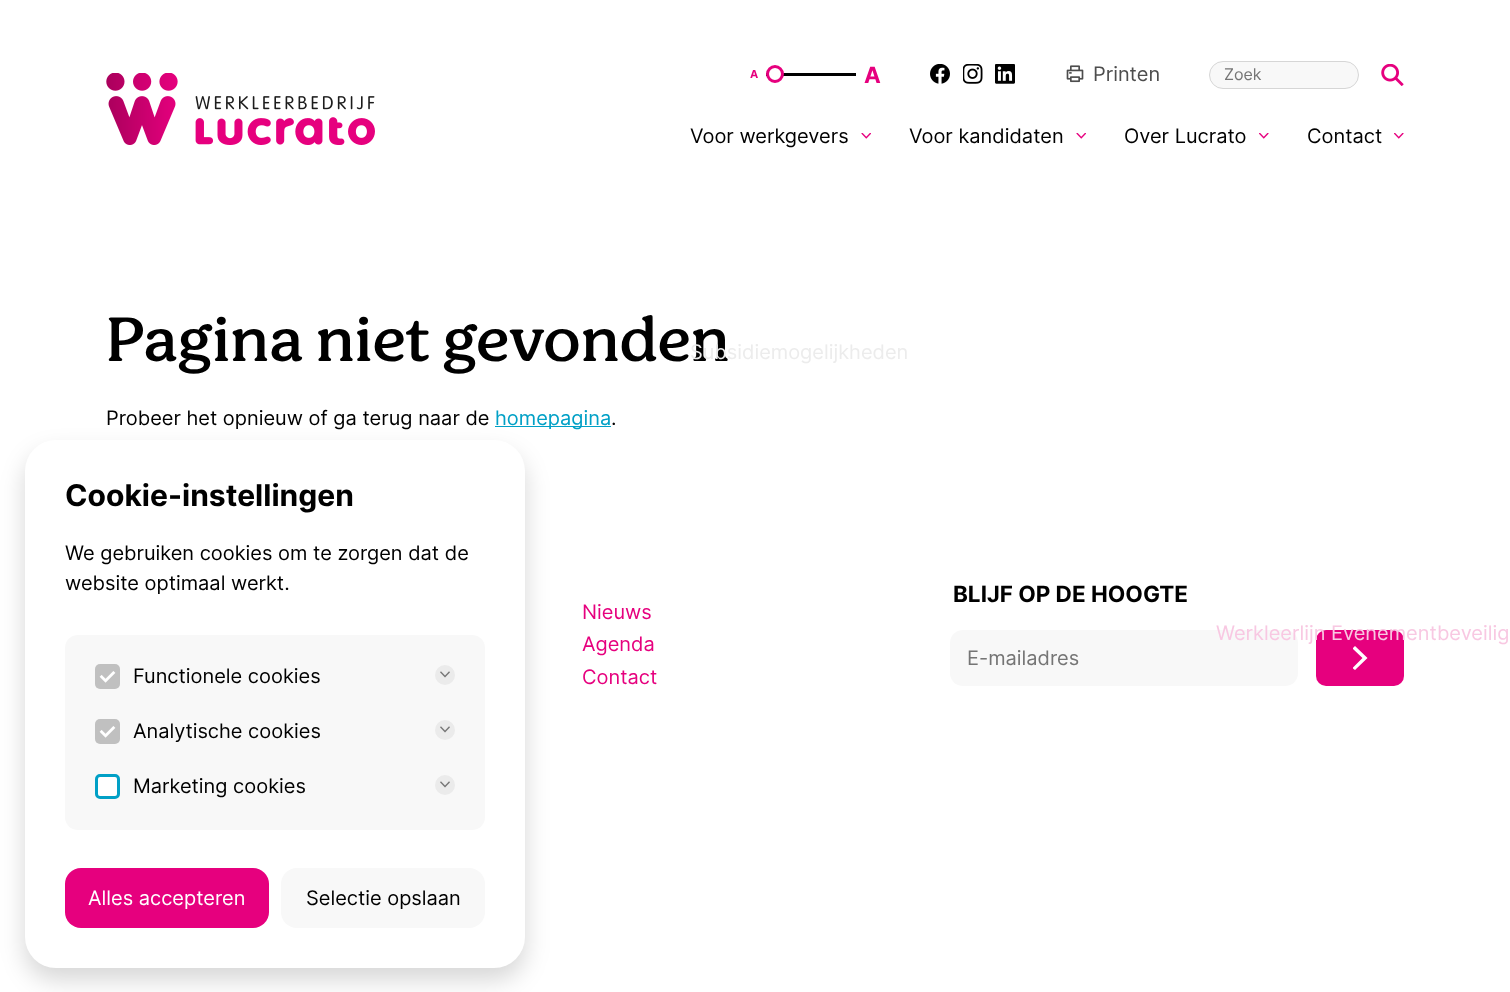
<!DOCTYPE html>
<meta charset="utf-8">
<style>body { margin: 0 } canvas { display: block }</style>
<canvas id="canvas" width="1510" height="992"></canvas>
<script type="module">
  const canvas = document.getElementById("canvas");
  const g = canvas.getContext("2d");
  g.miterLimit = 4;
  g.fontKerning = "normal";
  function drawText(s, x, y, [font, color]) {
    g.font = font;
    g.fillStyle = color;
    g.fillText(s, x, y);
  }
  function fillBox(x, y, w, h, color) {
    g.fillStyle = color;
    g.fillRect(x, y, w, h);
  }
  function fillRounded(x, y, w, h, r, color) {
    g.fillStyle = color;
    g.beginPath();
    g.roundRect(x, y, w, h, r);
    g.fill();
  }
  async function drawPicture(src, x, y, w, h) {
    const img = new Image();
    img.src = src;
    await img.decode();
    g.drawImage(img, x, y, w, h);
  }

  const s1 = ["600 60.4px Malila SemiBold", "#000000"];
  const s2 = ["20px Inter", "#000000"];
  const s3 = ["20px Inter", "#01A0C6"];
  const s4 = ["bold 11px Inter", "#E6007E"];
  const s5 = ["bold 22.5px Inter", "#E6007E"];
  const s6 = ["20px Inter", "#4D4D4D"];
  const s7 = ["16px Inter", "#757575"];
  const s8 = ["20px Inter", "#ECECEC"];
  const s9 = ["20px Inter", "#F8C8E2"];
  const s10 = ["bold 30px Inter", "#000000"];
  const s11 = ["20px Inter", "#FFFFFF"];
  const s12 = ["20px Inter", "#E6007E"];
  const s13 = ["bold 22.5px Inter", "#000000"];
  const s14 = ["20px Inter", "#757575"];

  fillBox(0, 0, 1510, 992, "#FFFFFF");
  drawText("Pagina niet gevonden", 106, 361, s1);
  drawText("Probeer het opnieuw of ga terug naar de", 106, 425, s2);
  fillBox(495, 426, 116, 1, "#01A0C6");
  drawText("homepagina", 495, 425, s3);
  drawText(".", 611, 425, s2);
  await drawPicture("pic1.png", 106, 73, 269, 72);
  drawText("A", 750, 78, s4);
  fillBox(766, 73, 90, 3, "#000000");
  g.fillStyle = "#FFFFFF";
  g.beginPath();
  g.arc(775, 74, 7.5, 0, Math.PI * 2);
  g.fill();
  g.strokeStyle = "#E6007E";
  g.lineWidth = 3;
  g.stroke();
  drawText("A", 864, 83, s5);
  await drawPicture("pic2.png", 930, 64, 20, 20);
  await drawPicture("pic3.png", 963, 64, 20, 20);
  await drawPicture("pic4.png", 995, 64, 20, 20);
  await drawPicture("pic5.png", 1066, 65, 18, 18);
  drawText("Printen", 1093, 81, s6);
  g.fillStyle = "#F8F8F8";
  g.beginPath();
  g.roundRect(1209.5, 61.5, 149, 27, 13.5);
  g.fill();
  g.strokeStyle = "#D6D6D6";
  g.lineWidth = 1;
  g.stroke();
  drawText("Zoek", 1224, 80, s7);
  await drawPicture("pic6.png", 1381, 64, 23, 22);
  drawText("Voor werkgevers", 690, 143, s2);
  await drawPicture("pic7.png", 861, 133, 10, 6);
  drawText("Subsidiemogelijkheden", 690, 359, s8);
  drawText("Voor kandidaten", 909, 143, s2);
  await drawPicture("pic7.png", 1076, 133, 10, 6);
  fillRounded(950, 630, 348, 56, 13, "#F8F8F8");
  fillRounded(1316, 630, 88, 56, 10, "#E6007E");
  drawText("Werkleerlijn Evenementbeveilig", 1216, 640, s9);
  drawText("Over Lucrato", 1124, 143, s2);
  await drawPicture("pic8.png", 1259, 133, 10, 6);
  drawText("Contact", 1307, 143, s2);
  await drawPicture("pic8.png", 1394, 133, 10, 6);
  g.fillStyle = "rgba(0, 0, 0, 0.16)";
  g.filter = "blur(12.5px)";
  g.beginPath();
  g.roundRect(25, 453, 500, 527, 31);
  g.fill();
  g.filter = "none";
  fillRounded(25, 440, 500, 528, 31, "#FFFFFF");
  drawText("Cookie-instellingen", 65, 506, s10);
  drawText("We gebruiken cookies om te zorgen dat de", 65, 560, s2);
  drawText("website optimaal werkt.", 65, 590, s2);
  fillRounded(65, 635, 420, 195, 13, "#F8F8F8");
  fillRounded(95, 664, 25, 25, 5, "#C0C0C0");
  await drawPicture("pic9.png", 99, 671, 17, 12);
  drawText("Functionele cookies", 133, 683, s2);
  g.fillStyle = "#EBEBEB";
  g.beginPath();
  g.arc(445, 675, 10, 0, Math.PI * 2);
  g.fill();
  await drawPicture("pic10.png", 440, 671, 10, 7);
  fillRounded(95, 719, 25, 25, 5, "#C0C0C0");
  await drawPicture("pic9.png", 99, 726, 17, 12);
  drawText("Analytische cookies", 133, 738, s2);
  g.fillStyle = "#EBEBEB";
  g.beginPath();
  g.arc(445, 730, 10, 0, Math.PI * 2);
  g.fill();
  await drawPicture("pic10.png", 440, 726, 10, 7);
  g.fillStyle = "#FFFFFF";
  g.beginPath();
  g.roundRect(96.5, 775.5, 22, 22, 3.5);
  g.fill();
  g.strokeStyle = "#01A0C6";
  g.lineWidth = 3;
  g.stroke();
  drawText("Marketing cookies", 133, 793, s2);
  g.fillStyle = "#EBEBEB";
  g.beginPath();
  g.arc(445, 785, 10, 0, Math.PI * 2);
  g.fill();
  await drawPicture("pic10.png", 440, 781, 10, 7);
  fillRounded(65, 868, 204, 60, 16, "#E6007E");
  drawText("Alles accepteren", 88, 905, s11);
  fillRounded(281, 868, 204, 60, 16, "#F8F8F8");
  drawText("Selectie opslaan", 306, 905, s2);
  drawText("Nieuws", 582, 619, s12);
  drawText("Agenda", 582, 651, s12);
  drawText("Contact", 582, 684, s12);
  drawText("BLIJF OP DE HOOGTE", 953, 602, s13);
  drawText("E-mailadres", 967, 665, s14);
  g.save();
  g.beginPath();
  g.rect(1353, 646, 15, 24);
  g.clip();
  g.fillStyle = "#FFFFFF";
  g.beginPath();
  g.moveTo(1355, 670);
  g.lineTo(1352.5, 668);
  g.lineTo(1362.5, 658);
  g.lineTo(1352.5, 648.5);
  g.lineTo(1355, 646);
  g.lineTo(1367.5, 658);
  g.closePath();
  g.fill();
  g.restore();
</script>
